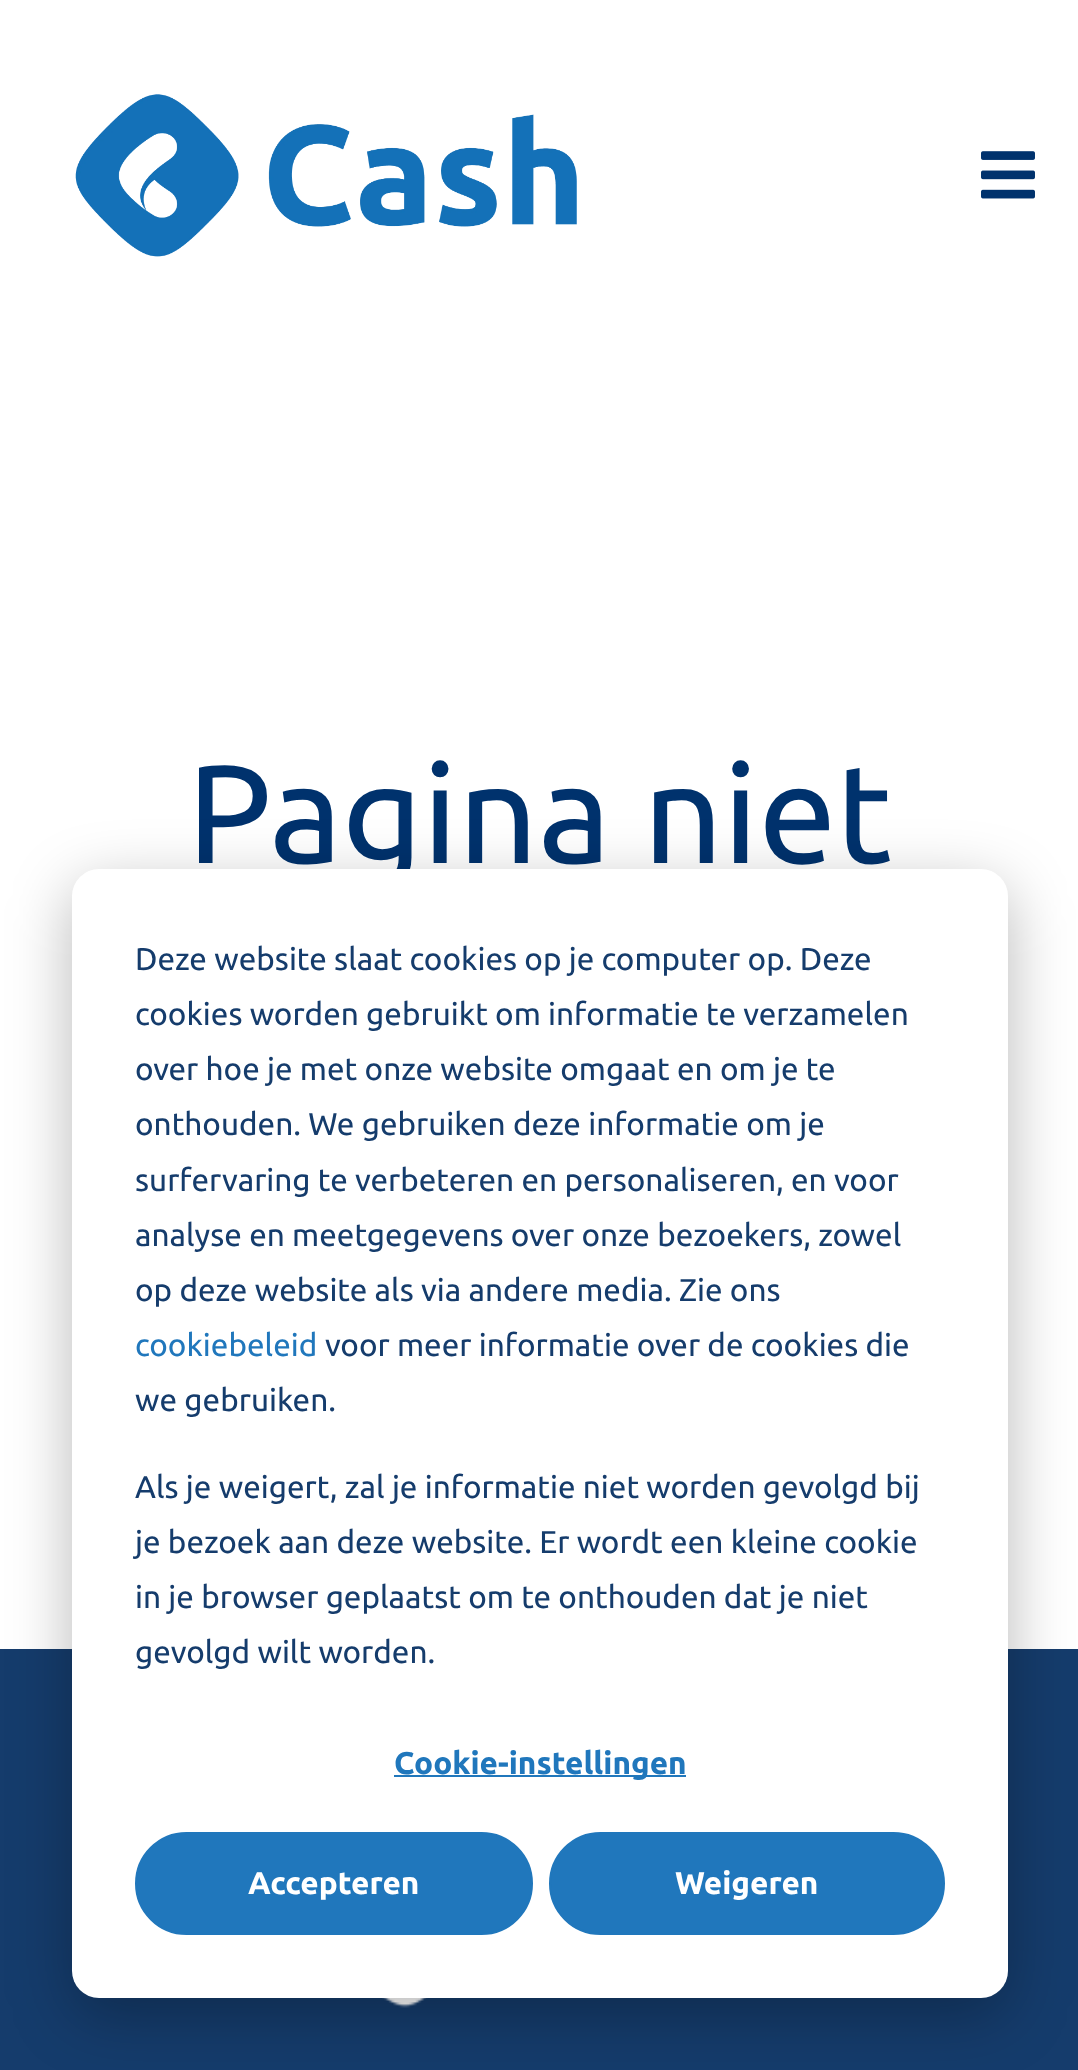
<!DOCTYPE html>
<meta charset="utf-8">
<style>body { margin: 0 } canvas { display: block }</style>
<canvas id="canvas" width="1078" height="2070"></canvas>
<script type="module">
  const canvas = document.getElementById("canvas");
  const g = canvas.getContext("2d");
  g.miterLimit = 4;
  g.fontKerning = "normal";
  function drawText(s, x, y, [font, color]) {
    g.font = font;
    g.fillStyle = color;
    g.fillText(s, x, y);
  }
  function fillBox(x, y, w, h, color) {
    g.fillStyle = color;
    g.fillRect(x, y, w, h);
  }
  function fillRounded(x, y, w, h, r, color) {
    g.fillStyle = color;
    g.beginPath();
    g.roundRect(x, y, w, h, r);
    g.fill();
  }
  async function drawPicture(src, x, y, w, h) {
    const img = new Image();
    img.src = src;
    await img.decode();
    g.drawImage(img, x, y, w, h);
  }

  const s1 = ["139.5px Ubuntu", "#00326D"];
  const s2 = ["31.5px Ubuntu", "#153C6C"];
  const s3 = ["31.5px Ubuntu", "#2077BC"];
  const s4 = ["bold 31.5px Ubuntu", "#2077BC"];
  const s5 = ["bold 31.5px Ubuntu", "#FFFFFF"];

  fillBox(0, 0, 1078, 2070, "#FFFFFF");
  await drawPicture("pic1.png", 75, 94, 502, 163);
  await drawPicture("pic2.png", 981, 151, 54, 48);
  drawText("Pagina niet", 187, 863, s1);
  fillBox(0, 1649, 1078, 421, "#153C6C");
  await drawPicture("pic3.png", 382, 1998, 46, 10);
  g.fillStyle = "rgba(0, 0, 0, 0.28)";
  g.filter = "blur(31.5px)";
  g.beginPath();
  g.roundRect(72, 887, 936, 1129, 27);
  g.fill();
  g.filter = "none";
  fillRounded(72, 869, 936, 1129, 27, "#FFFFFF");
  drawText("Deze website slaat cookies op je computer op. Deze", 135, 970, s2);
  drawText("cookies worden gebruikt om informatie te verzamelen", 135, 1025, s2);
  drawText("over hoe je met onze website omgaat en om je te", 135, 1080, s2);
  drawText("onthouden. We gebruiken deze informatie om je", 135, 1135, s2);
  drawText("surfervaring te verbeteren en personaliseren, en voor", 135, 1191, s2);
  drawText("analyse en meetgegevens over onze bezoekers, zowel", 135, 1246, s2);
  drawText("op deze website als via andere media. Zie ons", 135, 1301, s2);
  drawText("cookiebeleid", 135, 1356, s3);
  drawText("voor meer informatie over de cookies die", 325, 1356, s2);
  drawText("we gebruiken.", 135, 1411, s2);
  drawText("Als je weigert, zal je informatie niet worden gevolgd bij", 135, 1498, s2);
  drawText("je bezoek aan deze website. Er wordt een kleine cookie", 135, 1553, s2);
  drawText("in je browser geplaatst om te onthouden dat je niet", 135, 1608, s2);
  drawText("gevolgd wilt worden.", 135, 1663, s2);
  fillBox(394, 1775, 292, 2, "#2077BC");
  drawText("Cookie-instellingen", 394, 1774, s4);
  g.beginPath();
  g.roundRect(136, 1833, 396, 101, 50.5);
  g.fill();
  g.strokeStyle = "#2077BC";
  g.lineWidth = 2;
  g.stroke();
  drawText("Accepteren", 248, 1894, s5);
  g.fillStyle = "#2077BC";
  g.beginPath();
  g.roundRect(550, 1833, 394, 101, 50.5);
  g.fill();
  g.stroke();
  drawText("Weigeren", 675, 1894, s5);
</script>
